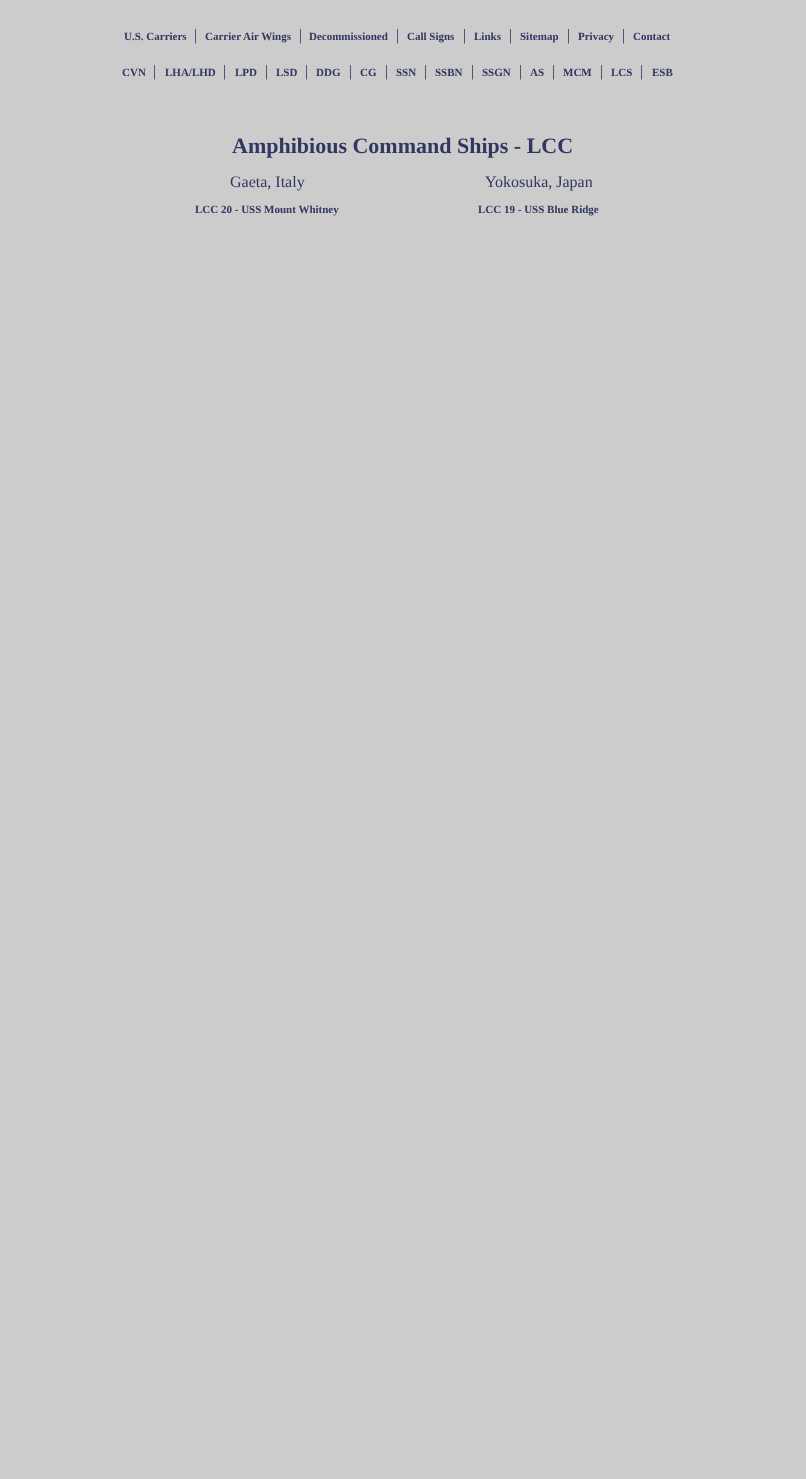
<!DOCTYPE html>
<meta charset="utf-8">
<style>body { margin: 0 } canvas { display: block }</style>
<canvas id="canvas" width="806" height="1479"></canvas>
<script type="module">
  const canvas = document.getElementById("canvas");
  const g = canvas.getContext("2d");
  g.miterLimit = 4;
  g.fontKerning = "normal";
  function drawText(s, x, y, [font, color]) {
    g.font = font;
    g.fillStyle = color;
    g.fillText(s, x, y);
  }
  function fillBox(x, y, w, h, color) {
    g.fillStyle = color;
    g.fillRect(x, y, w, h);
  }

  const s1 = ["bold 11px Liberation Serif", "#313760"];
  const s2 = ["16px Liberation Serif", "#313760"];
  const s3 = ["bold 22px Liberation Serif", "#313760"];

  fillBox(0, 0, 806, 1479, "#CCCCCC");
  drawText("U.S. Carriers", 124, 40, s1);
  drawText("|", 194, 40, s2);
  drawText("Carrier Air Wings", 205, 40, s1);
  drawText("|", 299, 40, s2);
  drawText("Decommissioned", 309, 40, s1);
  drawText("|", 396, 40, s2);
  drawText("Call Signs", 407, 40, s1);
  drawText("|", 463, 40, s2);
  drawText("Links", 474, 40, s1);
  drawText("|", 509, 40, s2);
  drawText("Sitemap", 520, 40, s1);
  drawText("|", 567, 40, s2);
  drawText("Privacy", 578, 40, s1);
  drawText("|", 622, 40, s2);
  drawText("Contact", 633, 40, s1);
  drawText("CVN", 122, 76, s1);
  drawText("|", 153, 76, s2);
  drawText("LHA/LHD", 165, 76, s1);
  drawText("|", 223, 76, s2);
  drawText("LPD", 235, 76, s1);
  drawText("|", 265, 76, s2);
  drawText("LSD", 276, 76, s1);
  drawText("|", 305, 76, s2);
  drawText("DDG", 316, 76, s1);
  drawText("|", 349, 76, s2);
  drawText("CG", 360, 76, s1);
  drawText("|", 385, 76, s2);
  drawText("SSN", 396, 76, s1);
  drawText("|", 424, 76, s2);
  drawText("SSBN", 435, 76, s1);
  drawText("|", 471, 76, s2);
  drawText("SSGN", 482, 76, s1);
  drawText("|", 519, 76, s2);
  drawText("AS", 530, 76, s1);
  drawText("|", 552, 76, s2);
  drawText("MCM", 563, 76, s1);
  drawText("|", 600, 76, s2);
  drawText("LCS", 611, 76, s1);
  drawText("|", 640, 76, s2);
  drawText("ESB", 652, 76, s1);
  drawText("Amphibious Command Ships - LCC", 232, 153, s3);
  drawText("Gaeta, Italy", 230, 187, s2);
  drawText("Yokosuka, Japan", 485, 187, s2);
  drawText("LCC 20 - USS Mount Whitney", 195, 213, s1);
  drawText("LCC 19 - USS Blue Ridge", 478, 213, s1);
</script>
